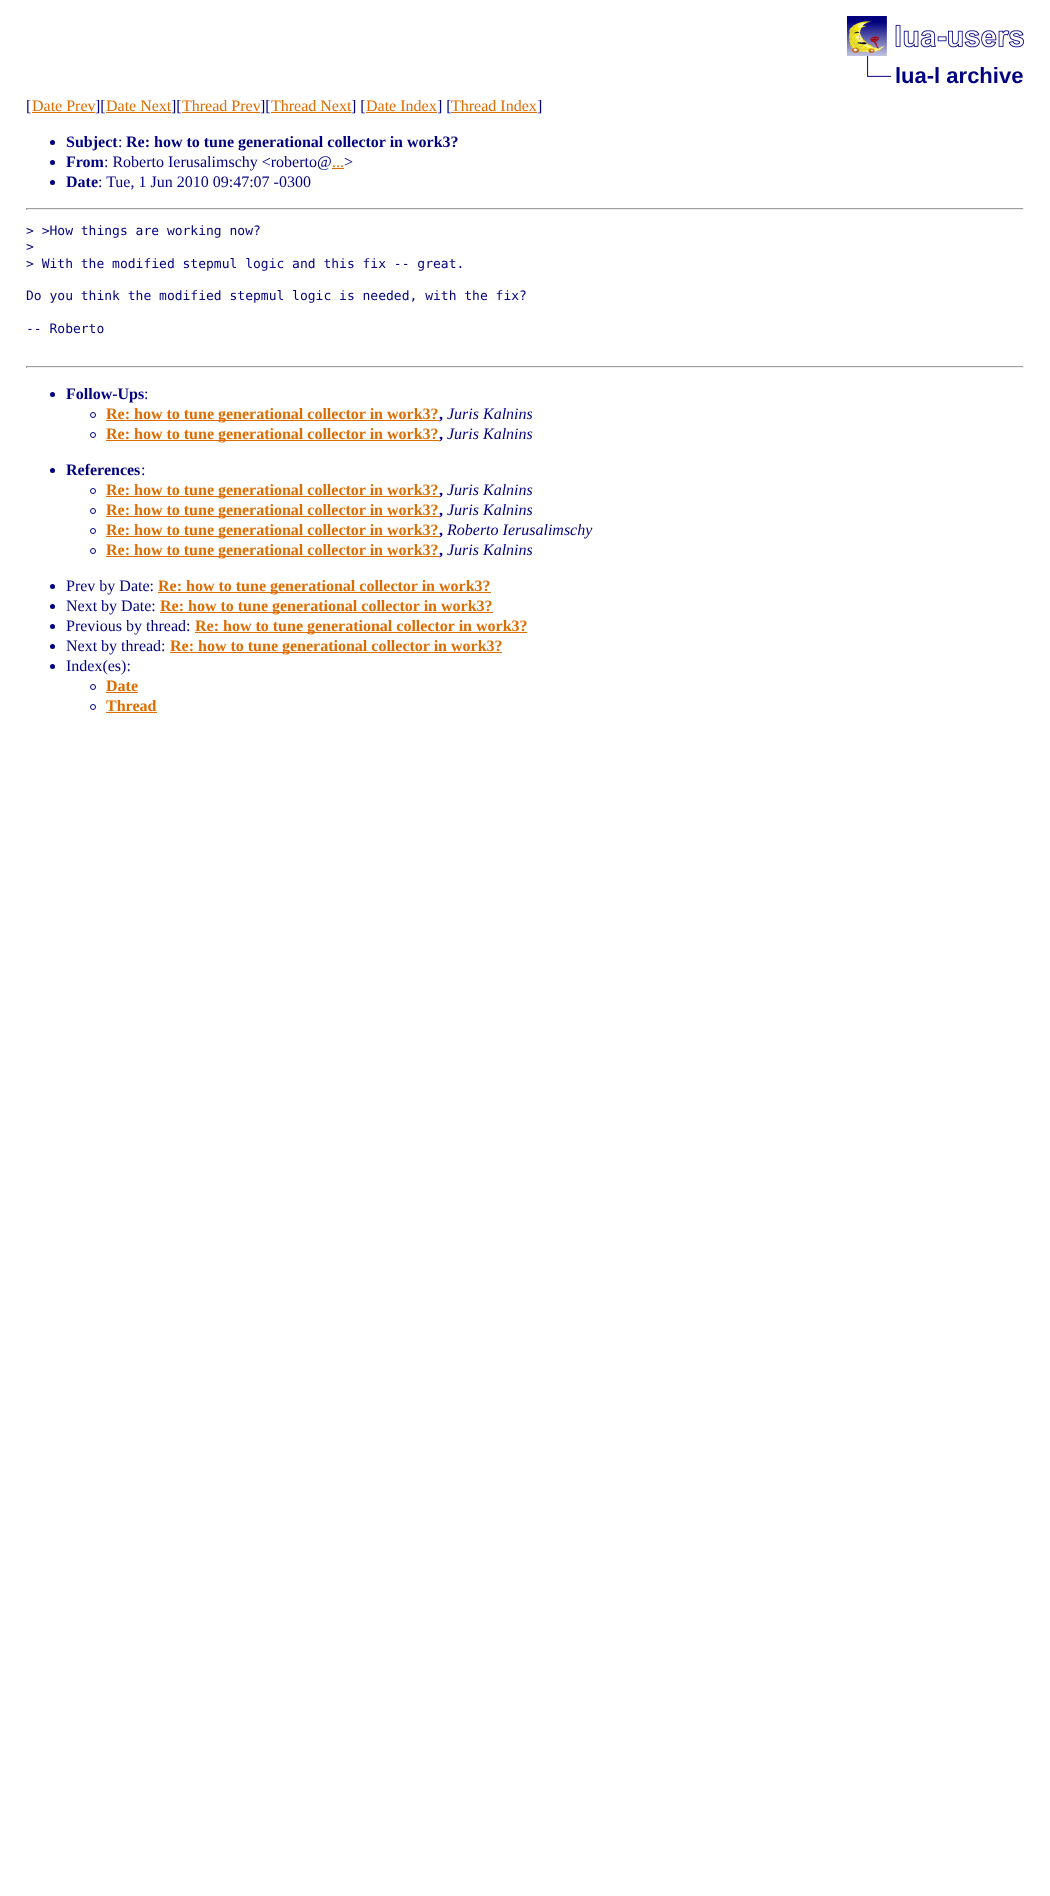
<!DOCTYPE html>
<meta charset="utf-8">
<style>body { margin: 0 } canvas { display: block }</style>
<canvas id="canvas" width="1050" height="1896"></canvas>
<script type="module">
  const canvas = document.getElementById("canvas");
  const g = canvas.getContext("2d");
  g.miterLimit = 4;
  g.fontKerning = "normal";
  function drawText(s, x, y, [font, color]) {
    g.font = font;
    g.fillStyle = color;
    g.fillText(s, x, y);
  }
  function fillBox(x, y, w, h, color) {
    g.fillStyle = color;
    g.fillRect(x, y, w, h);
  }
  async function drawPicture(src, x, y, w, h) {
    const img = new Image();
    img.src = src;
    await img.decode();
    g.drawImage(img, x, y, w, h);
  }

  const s1 = ["bold 22px Liberation Sans", "#000080"];
  const s2 = ["16px Liberation Serif", "#000080"];
  const s3 = ["16px Liberation Serif", "#DF6C00"];
  const s4 = ["bold 16px Liberation Serif", "#000080"];
  const s5 = ["13px DejaVu Sans Mono", "#000080"];
  const s6 = ["bold 16px Liberation Serif", "#DF6C00"];
  const s7 = ["italic 16px Liberation Serif", "#000080"];

  fillBox(0, 0, 1050, 1896, "#FFFFFF");
  await drawPicture("pic1.png", 847, 16, 177, 40);
  await drawPicture("pic2.png", 867, 56, 25, 21);
  drawText("lua-l archive", 895, 83, s1);
  drawText("[", 26, 111, s2);
  drawText("Date Prev", 32, 111, s3);
  fillBox(32, 112, 63, 1, "#DF6C00");
  drawText("][", 95, 111, s2);
  drawText("Date Next", 106, 111, s3);
  fillBox(106, 112, 65, 1, "#DF6C00");
  drawText("][", 171, 111, s2);
  drawText("Thread Prev", 182, 111, s3);
  fillBox(182, 112, 78, 1, "#DF6C00");
  drawText("][", 260, 111, s2);
  drawText("Thread Next", 271, 111, s3);
  fillBox(271, 112, 80, 1, "#DF6C00");
  drawText("] [", 351, 111, s2);
  drawText("Date Index", 366, 111, s3);
  fillBox(366, 112, 71, 1, "#DF6C00");
  drawText("] [", 437, 111, s2);
  drawText("Thread Index", 451, 111, s3);
  fillBox(451, 112, 86, 1, "#DF6C00");
  drawText("]", 537, 111, s2);
  g.beginPath();
  g.arc(52.5, 142.5, 2.5, 0, Math.PI * 2);
  g.fill();
  drawText("Subject", 66, 147, s4);
  drawText(":", 118, 147, s2);
  drawText("Re: how to tune generational collector in work3?", 126, 147, s4);
  g.beginPath();
  g.arc(52.5, 162.5, 2.5, 0, Math.PI * 2);
  g.fill();
  drawText("From", 66, 167, s4);
  drawText(": Roberto Ierusalimschy <roberto@", 104, 167, s2);
  drawText(">", 344, 167, s2);
  drawText("...", 332, 167, s3);
  fillBox(332, 168, 12, 1, "#DF6C00");
  g.fillStyle = "#000080";
  g.beginPath();
  g.arc(52.5, 182.5, 2.5, 0, Math.PI * 2);
  g.fill();
  drawText("Date", 66, 187, s4);
  drawText(": Tue, 1 Jun 2010 09:47:07 -0300", 98, 187, s2);
  fillBox(26, 208, 998, 1, "#9F9F9F");
  fillBox(1023, 208, 1, 2, "#EEEEEE");
  fillBox(26, 209, 998, 1, "#EEEEEE");
  fillBox(26, 208, 1, 2, "#9F9F9F");
  drawText("> >How things are working now?", 26, 235, s5);
  drawText(">", 26, 251, s5);
  drawText("> With the modified stepmul logic and this fix -- great.", 26, 268, s5);
  drawText("Do you think the modified stepmul logic is needed, with the fix?", 26, 300, s5);
  drawText("-- Roberto", 26, 333, s5);
  fillBox(26, 366, 998, 1, "#9F9F9F");
  fillBox(1023, 366, 1, 2, "#EEEEEE");
  fillBox(26, 367, 998, 1, "#EEEEEE");
  fillBox(26, 366, 1, 2, "#9F9F9F");
  g.fillStyle = "#000080";
  g.beginPath();
  g.arc(52.5, 394.5, 2.5, 0, Math.PI * 2);
  g.fill();
  drawText("Follow-Ups", 66, 399, s4);
  drawText(":", 144, 399, s2);
  g.beginPath();
  g.arc(93, 415, 2.5, 0, Math.PI * 2);
  g.strokeStyle = "#000080";
  g.stroke();
  fillBox(106, 420, 333, 1, "#DF6C00");
  drawText("Re: how to tune generational collector in work3?", 106, 419, s6);
  drawText("Juris Kalnins", 447, 419, s7);
  drawText(",", 439, 419, s4);
  g.beginPath();
  g.arc(93, 435, 2.5, 0, Math.PI * 2);
  g.stroke();
  fillBox(106, 440, 333, 1, "#DF6C00");
  drawText("Re: how to tune generational collector in work3?", 106, 439, s6);
  drawText("Juris Kalnins", 447, 439, s7);
  drawText(",", 439, 439, s4);
  g.beginPath();
  g.arc(52.5, 470.5, 2.5, 0, Math.PI * 2);
  g.fill();
  drawText("References", 66, 475, s4);
  drawText(":", 141, 475, s2);
  g.beginPath();
  g.arc(93, 491, 2.5, 0, Math.PI * 2);
  g.stroke();
  fillBox(106, 496, 333, 1, "#DF6C00");
  drawText("Re: how to tune generational collector in work3?", 106, 495, s6);
  drawText("Juris Kalnins", 447, 495, s7);
  drawText(",", 439, 495, s4);
  g.beginPath();
  g.arc(93, 511, 2.5, 0, Math.PI * 2);
  g.stroke();
  fillBox(106, 516, 333, 1, "#DF6C00");
  drawText("Re: how to tune generational collector in work3?", 106, 515, s6);
  drawText("Juris Kalnins", 447, 515, s7);
  drawText(",", 439, 515, s4);
  g.beginPath();
  g.arc(93, 531, 2.5, 0, Math.PI * 2);
  g.stroke();
  fillBox(106, 536, 333, 1, "#DF6C00");
  drawText("Re: how to tune generational collector in work3?", 106, 535, s6);
  drawText("Roberto Ierusalimschy", 447, 535, s7);
  drawText(",", 439, 535, s4);
  g.beginPath();
  g.arc(93, 551, 2.5, 0, Math.PI * 2);
  g.stroke();
  fillBox(106, 556, 333, 1, "#DF6C00");
  drawText("Re: how to tune generational collector in work3?", 106, 555, s6);
  drawText("Juris Kalnins", 447, 555, s7);
  drawText(",", 439, 555, s4);
  g.beginPath();
  g.arc(52.5, 586.5, 2.5, 0, Math.PI * 2);
  g.fill();
  drawText("Prev by Date:", 66, 591, s2);
  fillBox(158, 592, 333, 1, "#DF6C00");
  drawText("Re: how to tune generational collector in work3?", 158, 591, s6);
  g.fillStyle = "#000080";
  g.beginPath();
  g.arc(52.5, 606.5, 2.5, 0, Math.PI * 2);
  g.fill();
  drawText("Next by Date:", 66, 611, s2);
  fillBox(160, 612, 333, 1, "#DF6C00");
  drawText("Re: how to tune generational collector in work3?", 160, 611, s6);
  g.fillStyle = "#000080";
  g.beginPath();
  g.arc(52.5, 626.5, 2.5, 0, Math.PI * 2);
  g.fill();
  drawText("Previous by thread:", 66, 631, s2);
  fillBox(195, 632, 332, 1, "#DF6C00");
  drawText("Re: how to tune generational collector in work3?", 195, 631, s6);
  g.fillStyle = "#000080";
  g.beginPath();
  g.arc(52.5, 646.5, 2.5, 0, Math.PI * 2);
  g.fill();
  drawText("Next by thread:", 66, 651, s2);
  fillBox(170, 652, 332, 1, "#DF6C00");
  drawText("Re: how to tune generational collector in work3?", 170, 651, s6);
  g.fillStyle = "#000080";
  g.beginPath();
  g.arc(52.5, 666.5, 2.5, 0, Math.PI * 2);
  g.fill();
  drawText("Index(es):", 66, 671, s2);
  g.beginPath();
  g.arc(93, 687, 2.5, 0, Math.PI * 2);
  g.stroke();
  drawText("Date", 106, 691, s6);
  fillBox(106, 692, 32, 1, "#DF6C00");
  g.beginPath();
  g.arc(93, 707, 2.5, 0, Math.PI * 2);
  g.stroke();
  drawText("Thread", 106, 711, s6);
  fillBox(106, 712, 51, 1, "#DF6C00");
</script>
